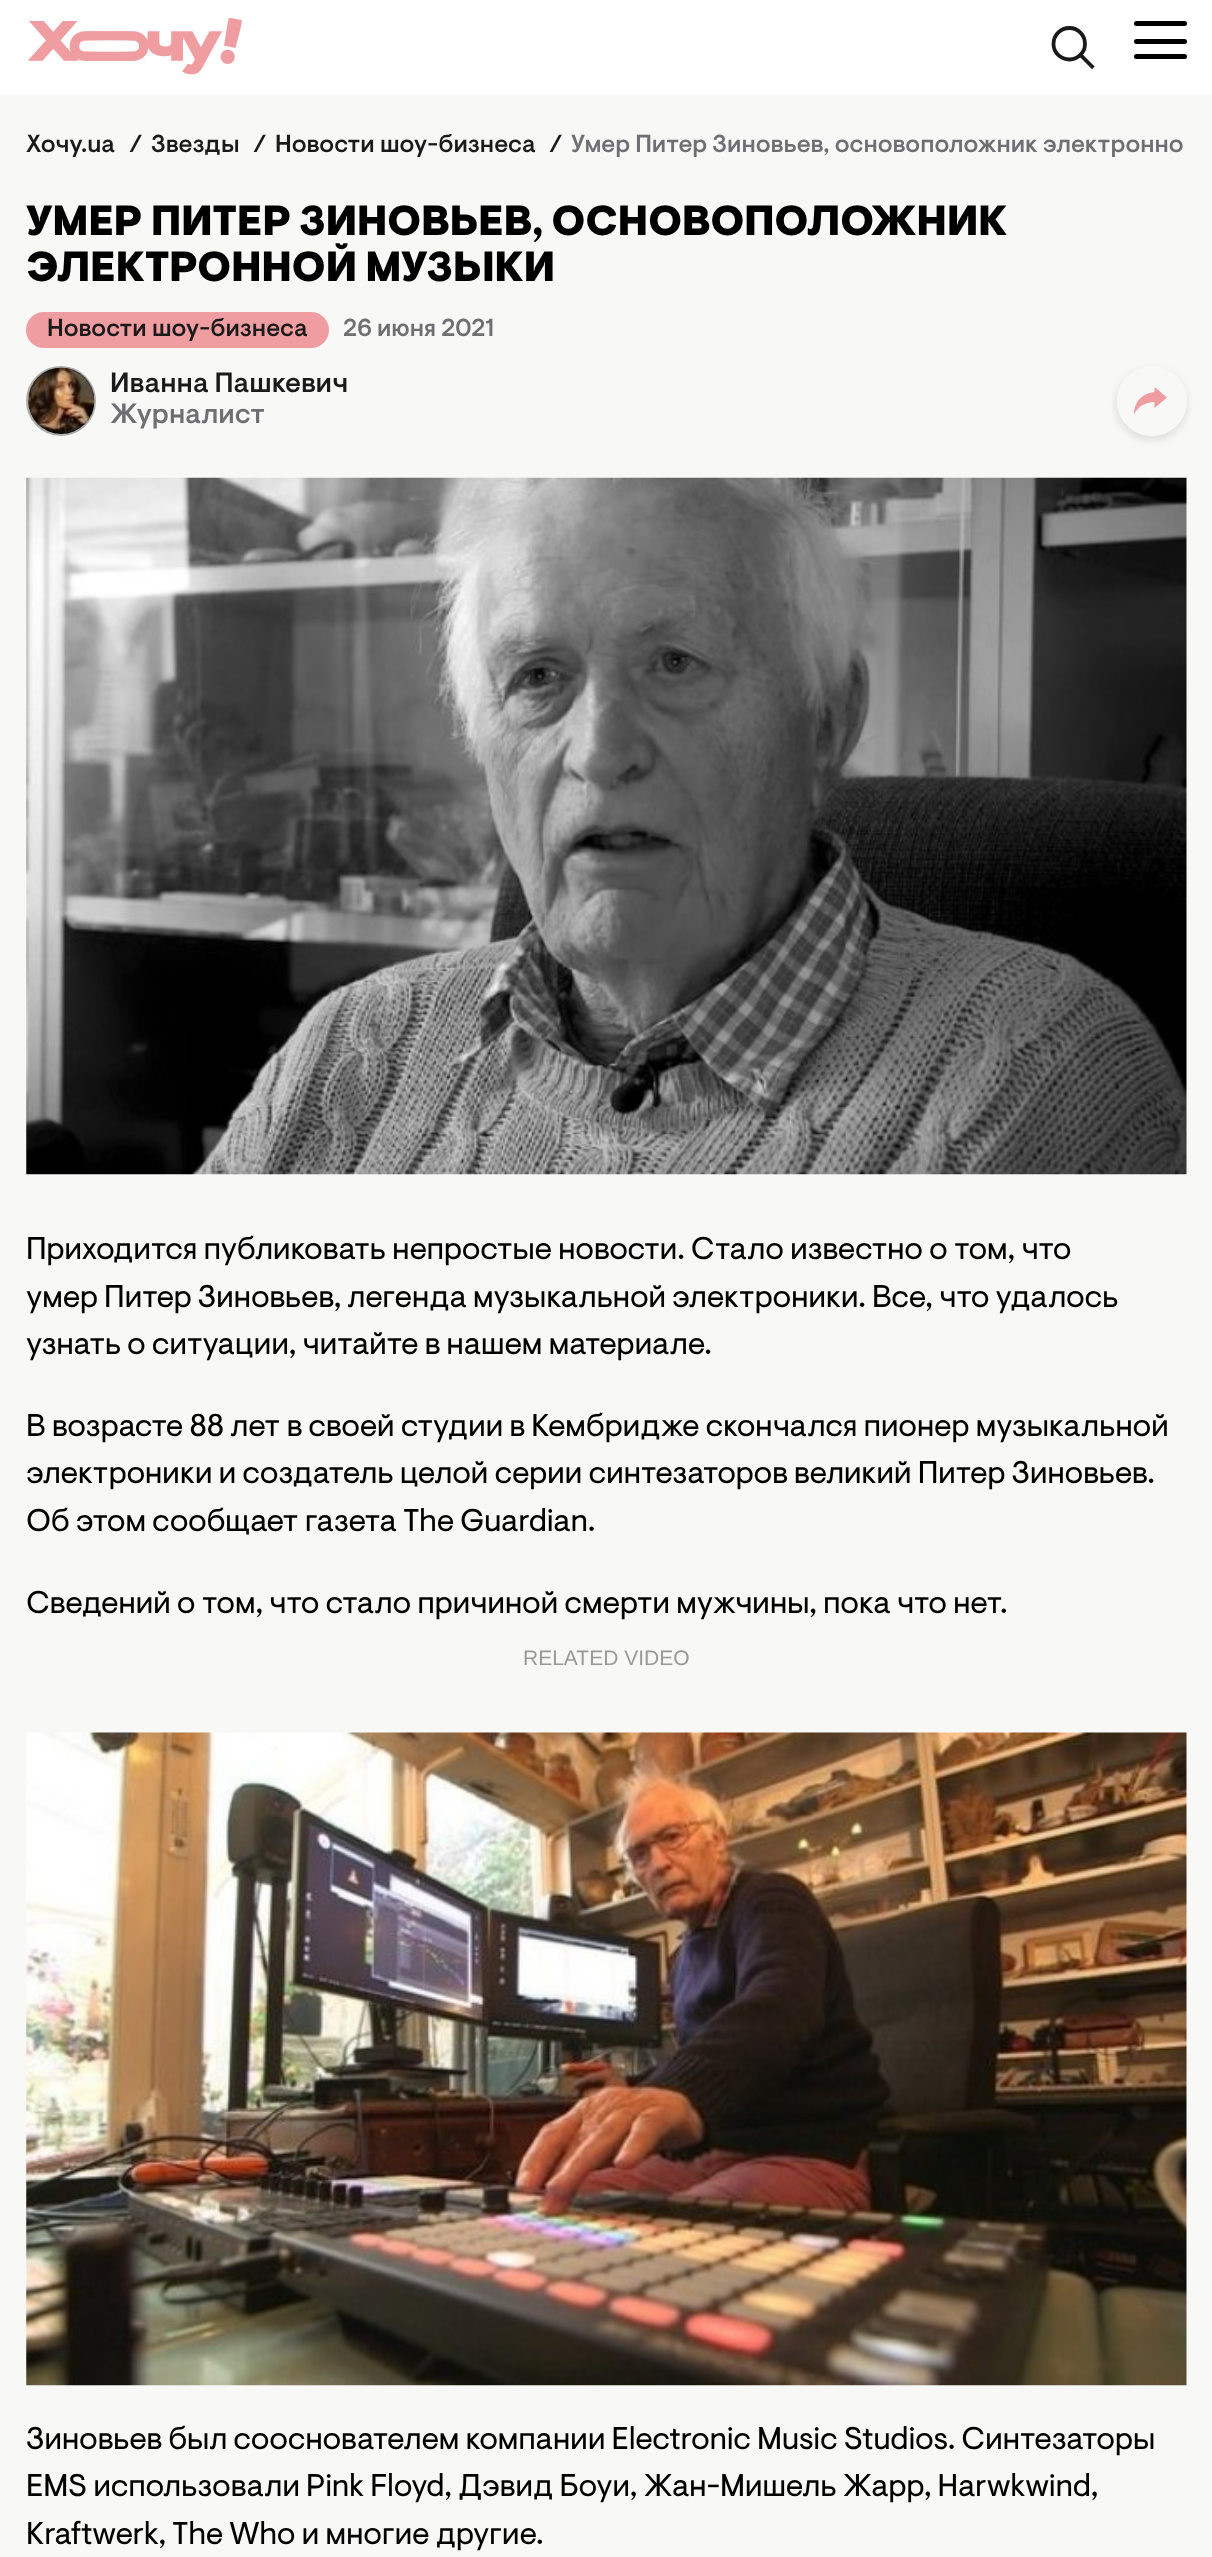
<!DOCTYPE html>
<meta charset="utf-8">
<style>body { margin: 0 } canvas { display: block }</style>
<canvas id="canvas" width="1212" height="2557"></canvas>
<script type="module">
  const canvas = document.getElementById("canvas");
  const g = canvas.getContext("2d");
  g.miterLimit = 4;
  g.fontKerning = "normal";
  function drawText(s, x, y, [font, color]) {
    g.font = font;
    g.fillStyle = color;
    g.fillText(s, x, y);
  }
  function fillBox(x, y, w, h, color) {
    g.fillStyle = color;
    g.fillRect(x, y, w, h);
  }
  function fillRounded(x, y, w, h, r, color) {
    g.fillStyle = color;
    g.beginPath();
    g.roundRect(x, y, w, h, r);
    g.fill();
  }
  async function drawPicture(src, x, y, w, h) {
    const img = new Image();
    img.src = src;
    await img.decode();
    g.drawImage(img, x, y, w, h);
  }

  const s1 = ["500 24.5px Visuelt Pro", "#1A1A1A"];
  const s2 = ["500 24.5px Visuelt Pro", "#6E6E73"];
  const s3 = ["900 42px Visuelt Pro", "#000000"];
  const s4 = ["500 28px Visuelt Pro", "#1A1A1A"];
  const s5 = ["500 28px Visuelt Pro", "#6E6E73"];
  const s6 = ["31.5px Visuelt Pro", "#000000"];
  const s7 = ["21px Liberation Sans", "#999999"];

  fillBox(0, 0, 1212, 2557, "#F8F8F7");
  fillBox(0, 0, 1212, 95, "#FFFFFF");
  await drawPicture("pic1.png", 27, 18, 216, 57);
  g.beginPath();
  g.moveTo(1085, 44);
  g.bezierCurveTo(1085, 52.5, 1078, 59.5, 1069.5, 59.5);
  g.bezierCurveTo(1060.5, 59.5, 1053.5, 52.5, 1053.5, 44);
  g.bezierCurveTo(1053.5, 35, 1060.5, 28, 1069.5, 28);
  g.bezierCurveTo(1078, 28, 1085, 35, 1085, 44);
  g.closePath();
  g.strokeStyle = "#1A1A1A";
  g.lineWidth = 3.8;
  g.stroke();
  g.beginPath();
  g.moveTo(1092, 66.5);
  g.lineTo(1080.5, 55);
  g.lineCap = "square";
  g.stroke();
  fillRounded(1134, 21, 53, 5, 2.5, "#000000");
  fillRounded(1134, 39, 53, 5, 2.5, "#000000");
  fillRounded(1134, 54, 53, 5, 2.5, "#000000");
  drawText("Хочу.ua", 26, 152, s1);
  drawText("/", 129, 152, s1);
  drawText("Звезды", 151, 152, s1);
  drawText("/", 253, 152, s1);
  drawText("Новости шоу-бизнеса", 275, 152, s1);
  drawText("/", 549, 152, s1);
  drawText("Умер Питер Зиновьев, основоположник электронно", 571, 152, s2);
  g.letterSpacing = "-0.4px";
  drawText("УМЕР ПИТЕР ЗИНОВЬЕВ, ОСНОВОПОЛОЖНИК", 26, 235, s3);
  drawText("ЭЛЕКТРОННОЙ МУЗЫКИ", 26, 281, s3);
  fillRounded(26, 312, 303, 36, 18, "#F09DA2");
  g.letterSpacing = "0px";
  drawText("Новости шоу-бизнеса", 47, 336, s1);
  drawText("26 июня 2021", 343, 336, s2);
  g.beginPath();
  g.arc(61, 401, 34, 0, Math.PI * 2);
  g.strokeStyle = "#ACACAC";
  g.lineWidth = 2;
  g.stroke();
  await drawPicture("pic2.png", 28, 367, 67, 67);
  drawText("Иванна Пашкевич", 110, 392, s4);
  drawText("Журналист", 110, 423, s5);
  g.save();
  g.beginPath();
  g.moveTo(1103, 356);
  g.lineTo(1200, 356);
  g.lineTo(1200, 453);
  g.lineTo(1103, 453);
  g.closePath();
  g.moveTo(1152, 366);
  g.bezierCurveTo(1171.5, 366, 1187, 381.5, 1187, 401);
  g.bezierCurveTo(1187, 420.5, 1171.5, 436, 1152, 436);
  g.bezierCurveTo(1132.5, 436, 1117, 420.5, 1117, 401);
  g.bezierCurveTo(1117, 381.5, 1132.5, 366, 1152, 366);
  g.closePath();
  g.clip("evenodd");
  g.fillStyle = "rgba(137, 137, 137, 0.2)";
  g.filter = "blur(3.5px)";
  g.beginPath();
  g.roundRect(1115, 368, 73, 73, 36.5);
  g.fill();
  g.filter = "none";
  g.restore();
  g.fillStyle = "#F09DA2";
  g.beginPath();
  g.moveTo(1167, 397.5);
  g.lineTo(1154.5, 387);
  g.lineTo(1154.5, 392);
  g.bezierCurveTo(1150, 392.5, 1134, 395.5, 1134, 415);
  g.bezierCurveTo(1134, 415, 1138, 402.5, 1154.5, 402);
  g.lineTo(1154.5, 408);
  g.closePath();
  g.fill();
  await drawPicture("pic3.png", 26, 477, 1161, 698);
  g.letterSpacing = "-0.32px";
  drawText("Приходится публиковать непростые новости. Стало известно о том, что", 26, 1259, s6);
  drawText("умер Питер Зиновьев, легенда музыкальной электроники. Все, что удалось", 26, 1307, s6);
  drawText("узнать о ситуации, читайте в нашем материале.", 26, 1354, s6);
  drawText("В возрасте 88 лет в своей студии в Кембридже скончался пионер музыкальной", 26, 1436, s6);
  drawText("электроники и создатель целой серии синтезаторов великий Питер Зиновьев.", 26, 1483, s6);
  drawText("Об этом сообщает газета Тhе Guardian.", 26, 1531, s6);
  drawText("Сведений о том, что стало причиной смерти мужчины, пока что нет.", 26, 1613, s6);
  g.letterSpacing = "0px";
  drawText("RELATED VIDEO", 523, 1665, s7);
  await drawPicture("pic4.png", 26, 1732, 1161, 654);
  g.letterSpacing = "-0.32px";
  drawText("Зиновьев был сооснователем компании Electronic Music Studios. Синтезаторы", 26, 2449, s6);
  drawText("EMS использовали Pink Floyd, Дэвид Боуи, Жан-Мишель Жарр, Harwkwind,", 26, 2496, s6);
  drawText("Kraftwerk, The Who и многие другие.", 26, 2544, s6);
</script>
